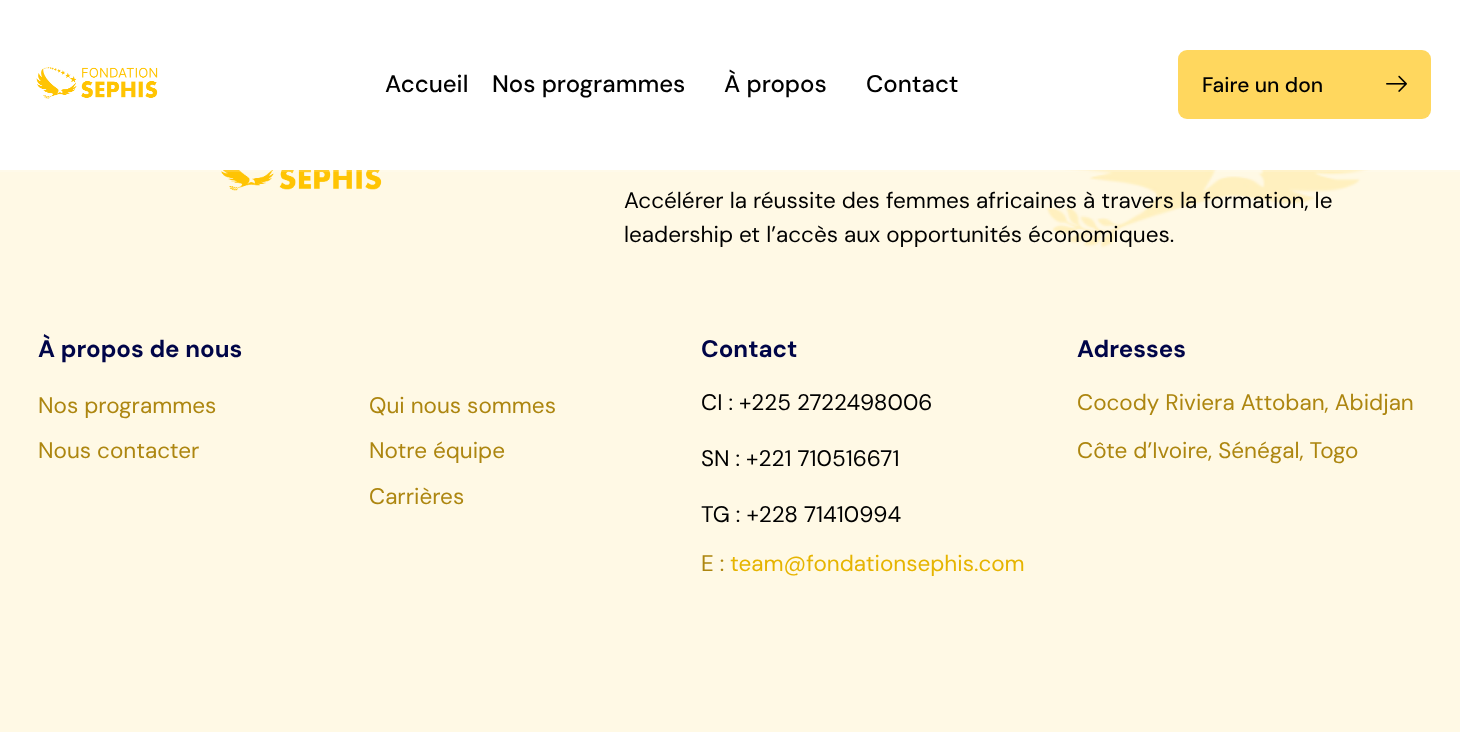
<!DOCTYPE html>
<meta charset="utf-8">
<style>body { margin: 0 } canvas { display: block }</style>
<canvas id="canvas" width="1460" height="732"></canvas>
<script type="module">
  const canvas = document.getElementById("canvas");
  const g = canvas.getContext("2d");
  g.miterLimit = 4;
  g.fontKerning = "normal";
  function drawText(s, x, y, [font, color]) {
    g.font = font;
    g.fillStyle = color;
    g.fillText(s, x, y);
  }
  function fillBox(x, y, w, h, color) {
    g.fillStyle = color;
    g.fillRect(x, y, w, h);
  }
  function fillRounded(x, y, w, h, r, color) {
    g.fillStyle = color;
    g.beginPath();
    g.roundRect(x, y, w, h, r);
    g.fill();
  }
  async function drawPicture(src, x, y, w, h) {
    const img = new Image();
    img.src = src;
    await img.decode();
    g.drawImage(img, x, y, w, h);
  }

  const s1 = ["500 24px DM Sans", "#000000"];
  const s2 = ["500 21px DM Sans", "#000000"];
  const s3 = ["22.5px DM Sans", "#000000"];
  const s4 = ["bold 24px DM Sans", "#000548"];
  const s5 = ["22.5px DM Sans", "#AD8610"];
  const s6 = ["22.5px DM Sans", "#E6B400"];

  fillBox(0, 0, 1460, 732, "#FFF9E5");
  await drawPicture("pic3.png", 1046, 170, 325, 79);
  await drawPicture("pic4.png", 221, 170, 161, 21);
  fillBox(0, 170, 1460, 2, "rgba(255, 255, 255, 0.15)");
  fillBox(0, 0, 1460, 170, "#FFFFFF");
  await drawPicture("pic1.png", 36, 67, 122, 32);
  drawText("Accueil", 385, 92, s1);
  drawText("Nos programmes", 492, 92, s1);
  drawText("À propos", 724, 92, s1);
  drawText("Contact", 866, 92, s1);
  fillRounded(1178, 50, 253, 69, 9, "#FFD75E");
  drawText("Faire un don", 1202, 92, s2);
  await drawPicture("pic2.png", 1386, 75, 21, 17);
  drawText("Accélérer la réussite des femmes africaines à travers la formation, le", 624, 208, s3);
  drawText("leadership et l’accès aux opportunités économiques.", 624, 242, s3);
  drawText("À propos de nous", 38, 357, s4);
  drawText("Nos programmes", 38, 413, s5);
  drawText("Nous contacter", 38, 458, s5);
  drawText("Qui nous sommes", 369, 413, s5);
  drawText("Notre équipe", 369, 458, s5);
  drawText("Carrières", 369, 504, s5);
  drawText("Contact", 701, 357, s4);
  drawText("CI : +225 2722498006", 701, 410, s3);
  drawText("SN : +221 710516671", 701, 466, s3);
  drawText("TG : +228 71410994", 701, 522, s3);
  drawText("E :", 701, 571, s5);
  drawText("team@fondationsephis.com", 730, 571, s6);
  drawText("Adresses", 1077, 357, s4);
  drawText("Cocody Riviera Attoban, Abidjan", 1077, 410, s5);
  drawText("Côte d’Ivoire, Sénégal, Togo", 1077, 458, s5);
</script>
